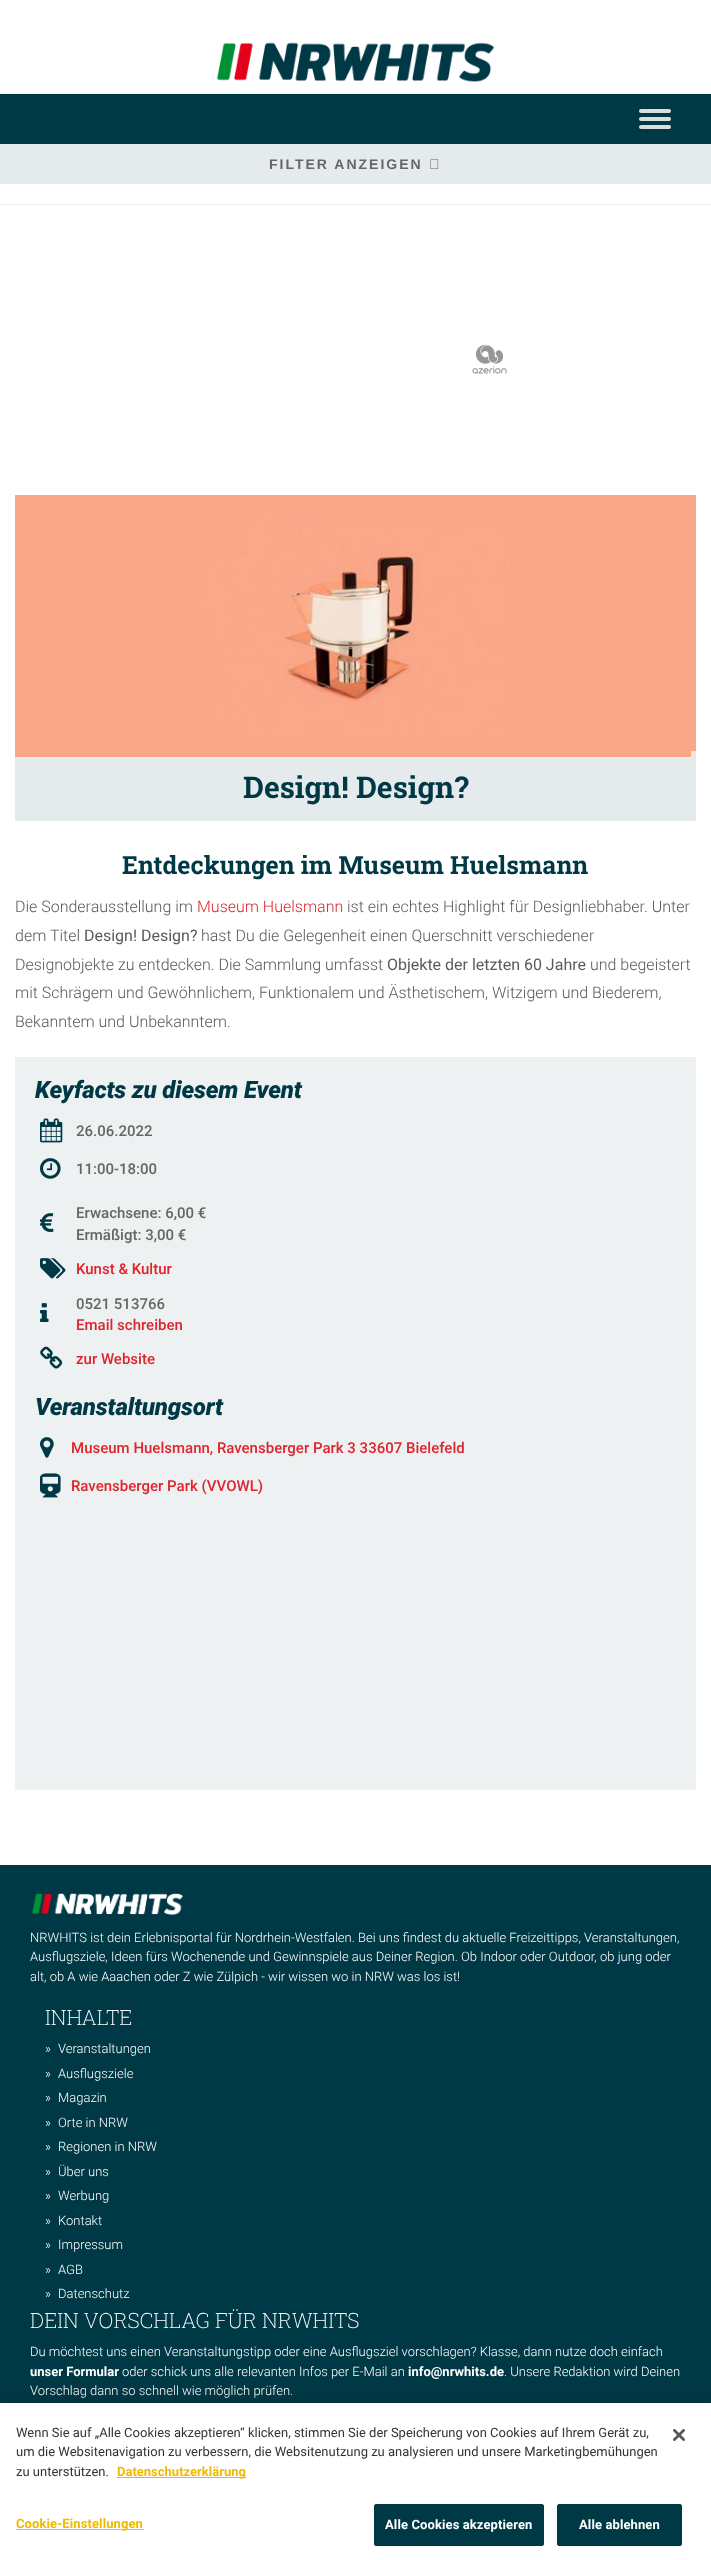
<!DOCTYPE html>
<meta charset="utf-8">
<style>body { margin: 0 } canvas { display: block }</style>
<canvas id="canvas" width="711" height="2560"></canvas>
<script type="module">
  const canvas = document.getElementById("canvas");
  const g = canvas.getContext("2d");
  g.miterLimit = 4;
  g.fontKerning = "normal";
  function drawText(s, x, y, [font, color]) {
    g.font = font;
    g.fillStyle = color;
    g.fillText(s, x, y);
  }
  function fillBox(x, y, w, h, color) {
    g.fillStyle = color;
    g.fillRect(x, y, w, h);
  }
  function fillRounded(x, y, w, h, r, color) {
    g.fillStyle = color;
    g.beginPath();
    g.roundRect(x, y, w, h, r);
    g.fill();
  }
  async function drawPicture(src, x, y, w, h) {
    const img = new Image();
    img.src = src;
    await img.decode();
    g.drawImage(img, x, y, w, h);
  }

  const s1 = ["bold 14px Liberation Sans", "#666666"];
  const s2 = ["bold 30px Roboto Slab", "#003946"];
  const s3 = ["bold 25px Roboto Slab", "#003946"];
  const s4 = ["300 16px Roboto", "#5A5A5A"];
  const s5 = ["300 16px Roboto", "#DE252D"];
  const s6 = ["16px Roboto", "#5A5A5A"];
  const s7 = ["italic 900 24px Roboto", "#003946"];
  const s8 = ["500 15px Roboto", "#666666"];
  const s9 = ["500 15px Roboto", "#DE252D"];
  const s10 = ["300 13px Roboto", "#FFFFFF"];
  const s11 = ["200 21px Roboto Slab", "#FFFFFF"];
  const s12 = ["bold 13px Roboto", "#FFFFFF"];
  const s13 = ["13px Roboto", "#333333"];
  const s14 = ["bold 13px Roboto", "#F0BA00"];

  fillBox(0, 0, 711, 2560, "#FFFFFF");
  fillBox(0, 204, 711, 1, "#EEEEEE");
  await drawPicture("pic1.png", 217, 42, 277, 40);
  fillBox(0, 94, 711, 50, "#003946");
  fillRounded(639, 109, 32, 4, 2, "#DDDDDD");
  fillRounded(639, 117, 32, 4, 2, "#DDDDDD");
  fillRounded(639, 125, 32, 4, 2, "#DDDDDD");
  fillBox(0, 144, 711, 40, "#E5EBEC");
  g.letterSpacing = "2px";
  drawText("FILTER ANZEIGEN", 269, 169, s1);
  await drawPicture("pic2.png", 430, 159, 9, 10);
  await drawPicture("pic3.png", 472, 344, 35, 30);
  await drawPicture("pic4.png", 15, 495, 681, 262);
  fillBox(691, 751, 6, 6, "rgba(255, 255, 255, 0.65)");
  fillBox(15, 757, 681, 64, "#E5EBEC");
  g.letterSpacing = "0px";
  drawText("Design! Design?", 243, 798, s2);
  drawText("Entdeckungen im Museum Huelsmann", 122, 874, s3);
  drawText("Die Sonderausstellung im", 15, 912, s4);
  drawText("Museum Huelsmann", 197, 912, s5);
  drawText("ist ein echtes Highlight für Designliebhaber. Unter", 347, 912, s4);
  drawText("dem Titel", 15, 941, s4);
  drawText("Design! Design?", 84, 941, s6);
  drawText("hast Du die Gelegenheit einen Querschnitt verschiedener", 201, 941, s4);
  drawText("Designobjekte zu entdecken. Die Sammlung umfasst", 15, 970, s4);
  drawText("Objekte der letzten 60 Jahre", 387, 970, s6);
  drawText("und begeistert", 590, 970, s4);
  drawText("mit Schrägem und Gewöhnlichem, Funktionalem und Ästhetischem, Witzigem und Biederem,", 15, 998, s4);
  drawText("Bekanntem und Unbekanntem.", 15, 1027, s4);
  fillBox(15, 1057, 681, 733, "#EDF1F2");
  g.letterSpacing = "-0.25px";
  drawText("Keyfacts zu diesem Event", 35, 1098, s7);
  await drawPicture("pic5.png", 40, 1118, 23, 25);
  g.letterSpacing = "0px";
  drawText("26.06.2022", 76, 1136, s8);
  await drawPicture("pic6.png", 40, 1158, 21, 21);
  drawText("11:00-18:00", 76, 1174, s8);
  await drawPicture("pic7.png", 40, 1213, 14, 19);
  drawText("Erwachsene: 6,00 €", 76, 1218, s8);
  drawText("Ermäßigt: 3,00 €", 76, 1240, s8);
  await drawPicture("pic8.png", 40, 1258, 26, 21);
  drawText("Kunst & Kultur", 76, 1274, s9);
  await drawPicture("pic9.png", 40, 1303, 9, 19);
  drawText("0521 513766", 76, 1309, s8);
  drawText("Email schreiben", 76, 1330, s9);
  await drawPicture("pic10.png", 40, 1346, 23, 23);
  drawText("zur Website", 76, 1364, s9);
  g.letterSpacing = "-0.25px";
  drawText("Veranstaltungsort", 35, 1415, s7);
  await drawPicture("pic11.png", 40, 1437, 14, 21);
  g.letterSpacing = "0px";
  drawText("Museum Huelsmann, Ravensberger Park 3 33607 Bielefeld", 71, 1453, s9);
  await drawPicture("pic12.png", 40, 1473, 21, 25);
  drawText("Ravensberger Park (VVOWL)", 71, 1491, s9);
  fillBox(0, 1865, 711, 538, "#003946");
  await drawPicture("pic13.png", 32, 1893, 152, 23);
  drawText("NRWHITS ist dein Erlebnisportal für Nordrhein-Westfalen. Bei uns findest du aktuelle Freizeittipps, Veranstaltungen,", 30, 1942, s10);
  drawText("Ausflugsziele, Ideen fürs Wochenende und Gewinnspiele aus Deiner Region. Ob Indoor oder Outdoor, ob jung oder", 30, 1961, s10);
  drawText("alt, ob A wie Aaachen oder Z wie Zülpich - wir wissen wo in NRW was los ist!", 30, 1981, s10);
  drawText("INHALTE", 45, 2025, s11);
  drawText("»", 45, 2053, s10);
  drawText("Veranstaltungen", 58, 2053, s10);
  drawText("»", 45, 2078, s10);
  drawText("Ausflugsziele", 58, 2078, s10);
  drawText("»", 45, 2102, s10);
  drawText("Magazin", 58, 2102, s10);
  drawText("»", 45, 2127, s10);
  drawText("Orte in NRW", 58, 2127, s10);
  drawText("»", 45, 2151, s10);
  drawText("Regionen in NRW", 58, 2151, s10);
  drawText("»", 45, 2176, s10);
  drawText("Über uns", 58, 2176, s10);
  drawText("»", 45, 2200, s10);
  drawText("Werbung", 58, 2200, s10);
  drawText("»", 45, 2225, s10);
  drawText("Kontakt", 58, 2225, s10);
  drawText("»", 45, 2249, s10);
  drawText("Impressum", 58, 2249, s10);
  drawText("»", 45, 2274, s10);
  drawText("AGB", 58, 2274, s10);
  drawText("»", 45, 2298, s10);
  drawText("Datenschutz", 58, 2298, s10);
  drawText("DEIN VORSCHLAG FÜR NRWHITS", 30, 2328, s11);
  drawText("Du möchtest uns einen Veranstaltungstipp oder eine Ausflugsziel vorschlagen? Klasse, dann nutze doch einfach", 30, 2356, s10);
  drawText("unser Formular", 30, 2376, s12);
  drawText("oder schick uns alle relevanten Infos per E-Mail an", 122, 2376, s10);
  drawText("info@nrwhits.de", 408, 2376, s12);
  drawText(". Unsere Redaktion wird Deinen", 504, 2376, s10);
  drawText("Vorschlag dann so schnell wie möglich prüfen.", 30, 2395, s10);
  g.fillStyle = "rgba(0, 0, 0, 0.2)";
  g.filter = "blur(9px)";
  g.beginPath();
  g.rect(0, 2403, 711, 157);
  g.fill();
  g.filter = "none";
  fillBox(0, 2403, 711, 157, "#FFFFFF");
  drawText("Wenn Sie auf „Alle Cookies akzeptieren“ klicken, stimmen Sie der Speicherung von Cookies auf Ihrem Gerät zu,", 16, 2437, s13);
  drawText("um die Websitenavigation zu verbessern, die Websitenutzung zu analysieren und unsere Marketingbemühungen", 16, 2456, s13);
  drawText("zu unterstützen.", 16, 2476, s13);
  fillBox(117, 2477, 129, 1, "#F0BA00");
  drawText("Datenschutzerklärung", 117, 2476, s14);
  fillBox(16, 2529, 128, 1, "#F0BA00");
  g.letterSpacing = "0.1px";
  drawText("Cookie-Einstellungen", 16, 2528, s14);
  g.fillStyle = "#003946";
  g.beginPath();
  g.roundRect(374.5, 2504.5, 169, 41, 1.5);
  g.fill();
  g.strokeStyle = "#003946";
  g.stroke();
  drawText("Alle Cookies akzeptieren", 385, 2529, s12);
  g.fillStyle = "#003946";
  g.beginPath();
  g.roundRect(557.5, 2504.5, 124, 41, 1.5);
  g.fill();
  g.stroke();
  drawText("Alle ablehnen", 579, 2529, s12);
  await drawPicture("pic14.png", 673, 2429, 12, 12);
</script>
